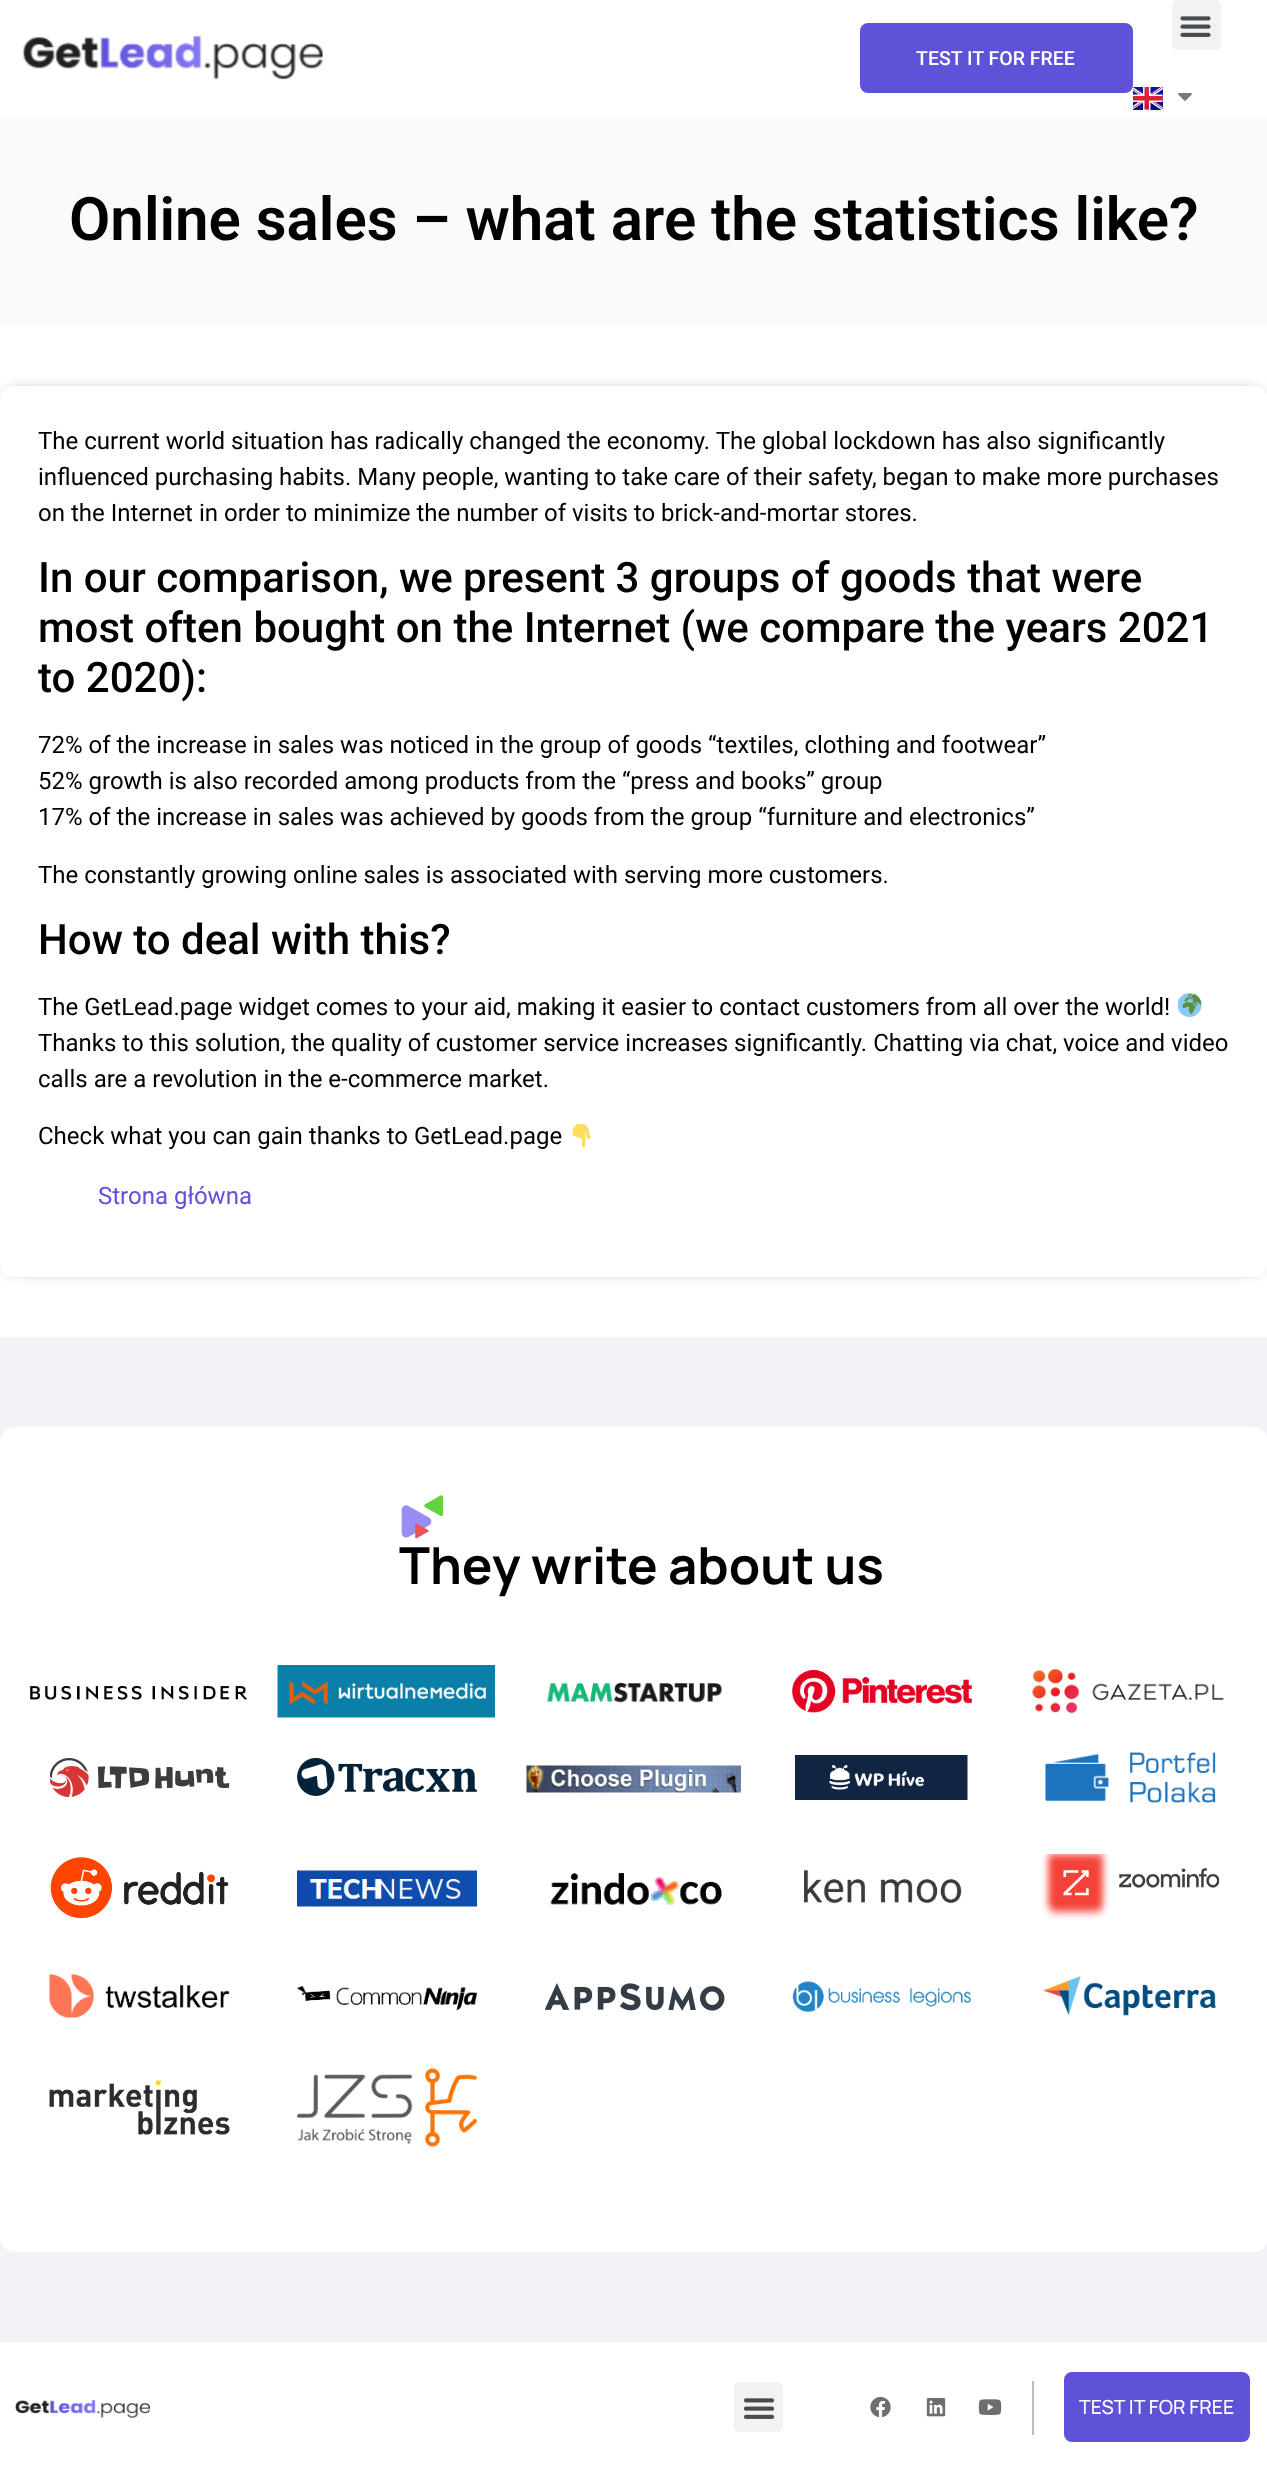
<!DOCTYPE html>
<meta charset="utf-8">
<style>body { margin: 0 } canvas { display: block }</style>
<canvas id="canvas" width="1267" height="2470"></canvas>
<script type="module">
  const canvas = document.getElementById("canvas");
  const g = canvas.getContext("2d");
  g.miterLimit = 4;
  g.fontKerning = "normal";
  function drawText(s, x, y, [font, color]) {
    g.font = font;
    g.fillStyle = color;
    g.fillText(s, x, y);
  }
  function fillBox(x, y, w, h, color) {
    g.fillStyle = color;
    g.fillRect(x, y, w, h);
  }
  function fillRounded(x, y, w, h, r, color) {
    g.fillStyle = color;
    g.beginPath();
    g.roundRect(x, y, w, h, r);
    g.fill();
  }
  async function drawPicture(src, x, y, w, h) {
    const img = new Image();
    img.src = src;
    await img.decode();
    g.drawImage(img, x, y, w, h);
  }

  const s1 = ["500 19.5px Roboto", "#FFFFFF"];
  const s2 = ["600 60px Roboto", "#000000"];
  const s3 = ["24px Roboto", "#000000"];
  const s4 = ["500 42px Roboto", "#000000"];
  const s5 = ["24px Roboto", "#5E52D9"];
  const s6 = ["bold 51px Manrope", "#000000"];
  const s7 = ["500 19.5px Manrope", "#FFFFFF"];

  fillBox(0, 0, 1267, 2470, "#FFFFFF");
  await drawPicture("pic1.png", 22, 36, 301, 44);
  g.fillStyle = "#5E52D9";
  g.beginPath();
  g.roundRect(861.5, 24.5, 270, 67, 6.5);
  g.fill();
  g.strokeStyle = "#5E52D9";
  g.lineWidth = 3;
  g.stroke();
  drawText("TEST IT FOR FREE", 916, 65, s1);
  fillRounded(1172, 0, 49, 50, 5, "#F2F2F2");
  await drawPicture("pic2.png", 1180, 16, 31, 21);
  await drawPicture("pic3.png", 1133, 87, 30, 23);
  await drawPicture("pic4.png", 1178, 93, 14, 8);
  fillBox(0, 116, 1267, 210, "#FAFAFA");
  drawText("Online sales – what are the statistics like?", 69, 240, s2);
  g.save();
  g.beginPath();
  g.moveTo(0, 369);
  g.lineTo(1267, 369);
  g.lineTo(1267, 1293);
  g.lineTo(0, 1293);
  g.closePath();
  g.moveTo(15, 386);
  g.lineTo(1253, 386);
  g.bezierCurveTo(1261.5, 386, 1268, 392.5, 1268, 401);
  g.lineTo(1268, 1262);
  g.bezierCurveTo(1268, 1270.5, 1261.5, 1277, 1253, 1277);
  g.lineTo(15, 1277);
  g.bezierCurveTo(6.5, 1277, 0, 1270.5, 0, 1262);
  g.lineTo(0, 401);
  g.bezierCurveTo(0, 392.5, 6.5, 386, 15, 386);
  g.closePath();
  g.clip("evenodd");
  g.fillStyle = "rgba(0, 0, 0, 0.5)";
  g.filter = "blur(7.5px)";
  g.beginPath();
  g.roundRect(8, 393, 1252, 876, 8);
  g.fill();
  g.filter = "none";
  g.restore();
  drawText("The current world situation has radically changed the economy. The global lockdown has also significantly", 38, 449, s3);
  drawText("influenced purchasing habits. Many people, wanting to take care of their safety, began to make more purchases", 38, 485, s3);
  drawText("on the Internet in order to minimize the number of visits to brick-and-mortar stores.", 38, 521, s3);
  drawText("In our comparison, we present 3 groups of goods that were", 38, 592, s4);
  drawText("most often bought on the Internet (we compare the years 2021", 38, 642, s4);
  drawText("to 2020):", 38, 692, s4);
  drawText("72% of the increase in sales was noticed in the group of goods “textiles, clothing and footwear”", 38, 753, s3);
  drawText("52% growth is also recorded among products from the “press and books” group", 38, 789, s3);
  drawText("17% of the increase in sales was achieved by goods from the group “furniture and electronics”", 38, 825, s3);
  drawText("The constantly growing online sales is associated with serving more customers.", 38, 883, s3);
  drawText("How to deal with this?", 38, 954, s4);
  drawText("The GetLead.page widget comes to your aid, making it easier to contact customers from all over the world!", 38, 1015, s3);
  await drawPicture("pic5.png", 1178, 993, 24, 24);
  drawText("Thanks to this solution, the quality of customer service increases significantly. Chatting via chat, voice and video", 38, 1051, s3);
  drawText("calls are a revolution in the e-commerce market.", 38, 1087, s3);
  drawText("Check what you can gain thanks to GetLead.page", 38, 1144, s3);
  await drawPicture("pic6.png", 572, 1124, 19, 24);
  drawText("Strona główna", 98, 1204, s5);
  fillBox(0, 1337, 1267, 1005, "#F3F2F7");
  fillRounded(0, 1427, 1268, 825, 15, "#FFFFFF");
  await drawPicture("pic7.png", 401, 1495, 43, 44);
  drawText("They write about us", 399, 1584, s6);
  await drawPicture("pic8.png", 30, 1686, 218, 14);
  await drawPicture("pic9.png", 277, 1665, 218, 53);
  await drawPicture("pic10.png", 547, 1683, 175, 20);
  await drawPicture("pic11.png", 792, 1669, 180, 44);
  await drawPicture("pic12.png", 1031, 1666, 193, 48);
  await drawPicture("pic13.png", 50, 1758, 180, 39);
  await drawPicture("pic14.png", 297, 1758, 180, 38);
  await drawPicture("pic15.png", 526, 1765, 215, 28);
  await drawPicture("pic16.png", 795, 1755, 173, 45);
  await drawPicture("pic17.png", 1045, 1752, 171, 51);
  await drawPicture("pic18.png", 50, 1857, 179, 62);
  await drawPicture("pic19.png", 297, 1870, 180, 37);
  await drawPicture("pic20.png", 550, 1873, 172, 33);
  await drawPicture("pic21.png", 804, 1870, 158, 34);
  await drawPicture("pic22.png", 1041, 1854, 179, 66);
  await drawPicture("pic23.png", 49, 1974, 181, 44);
  await drawPicture("pic24.png", 297, 1986, 180, 24);
  await drawPicture("pic25.png", 545, 1983, 180, 28);
  await drawPicture("pic26.png", 792, 1981, 180, 32);
  await drawPicture("pic27.png", 1043, 1976, 173, 40);
  await drawPicture("pic28.png", 49, 2080, 181, 55);
  await drawPicture("pic29.png", 297, 2068, 180, 79);
  await drawPicture("pic30.png", 15, 2400, 135, 18);
  fillRounded(734, 2382, 49, 50, 5, "#F2F2F2");
  await drawPicture("pic31.png", 743, 2398, 32, 21);
  fillBox(1032, 2381, 2, 54, "#BDBDBD");
  await drawPicture("pic32.png", 870, 2397, 21, 21);
  await drawPicture("pic33.png", 926, 2397, 20, 20);
  await drawPicture("pic34.png", 978, 2399, 24, 16);
  g.fillStyle = "#5E52D9";
  g.beginPath();
  g.roundRect(1065.5, 2373.5, 183, 67, 6.5);
  g.fill();
  g.stroke();
  drawText("TEST IT FOR FREE", 1079, 2414, s7);
</script>
